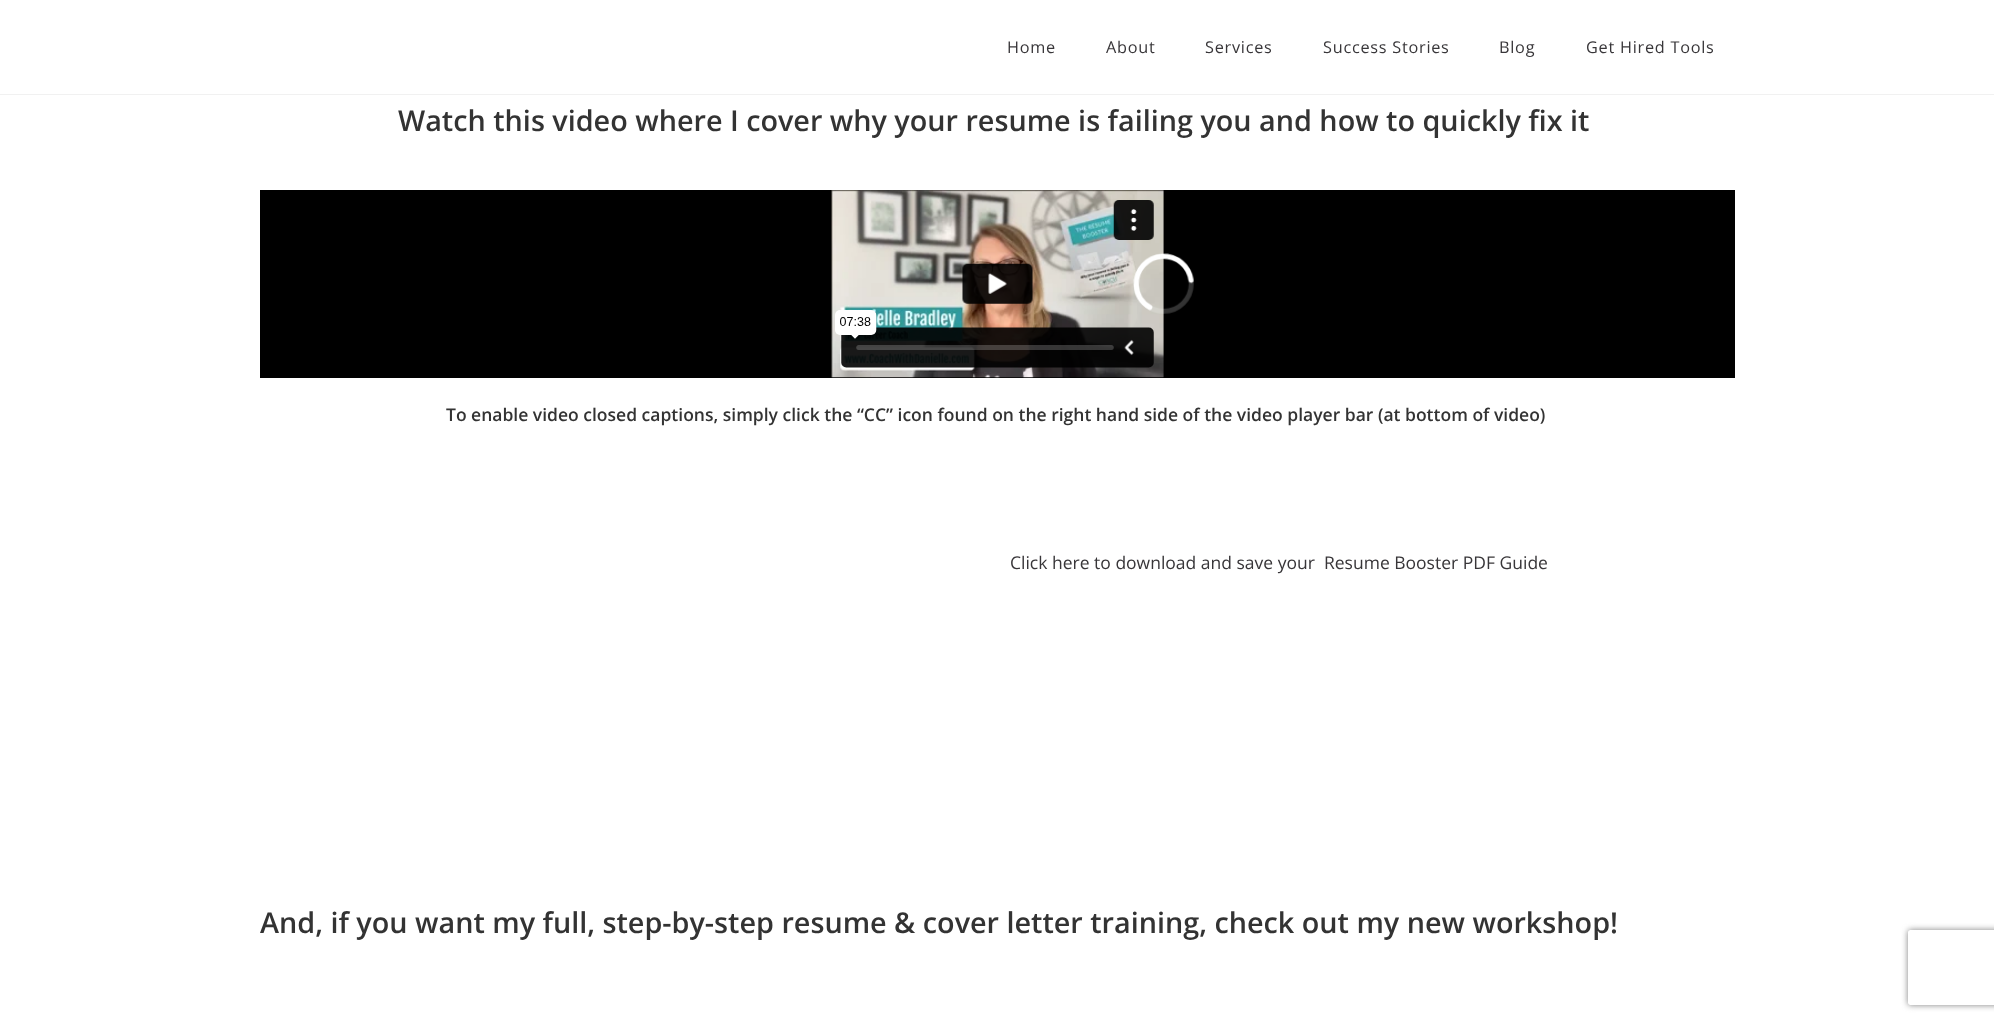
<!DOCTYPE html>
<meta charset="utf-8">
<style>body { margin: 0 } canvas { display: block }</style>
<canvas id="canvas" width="1994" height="1022"></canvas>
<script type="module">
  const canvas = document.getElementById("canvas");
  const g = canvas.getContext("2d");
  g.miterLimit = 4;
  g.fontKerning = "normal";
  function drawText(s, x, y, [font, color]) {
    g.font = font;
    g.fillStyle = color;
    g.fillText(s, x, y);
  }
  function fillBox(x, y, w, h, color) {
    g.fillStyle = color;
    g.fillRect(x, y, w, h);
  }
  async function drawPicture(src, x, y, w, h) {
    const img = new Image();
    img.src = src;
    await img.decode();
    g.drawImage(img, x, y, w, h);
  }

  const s1 = ["16.25px Open Sans", "#383639"];
  const s2 = ["600 28.75px Open Sans", "#333333"];
  const s3 = ["600 17.5px Open Sans", "#333333"];
  const s4 = ["17.5px Open Sans", "#383639"];

  fillBox(0, 0, 1994, 1022, "#FFFFFF");
  fillBox(0, 94, 1994, 1, "#F1F1F1");
  g.letterSpacing = "0.75px";
  drawText("Home", 1007, 53, s1);
  drawText("About", 1106, 53, s1);
  drawText("Services", 1205, 53, s1);
  drawText("Success Stories", 1323, 53, s1);
  drawText("Blog", 1499, 53, s1);
  drawText("Get Hired Tools", 1586, 53, s1);
  g.letterSpacing = "0px";
  drawText("Watch this video where I cover why your resume is failing you and how to quickly fix it", 398, 131, s2);
  fillBox(260, 190, 1475, 188, "#000000");
  await drawPicture("pic1.png", 831, 190, 363, 188);
  drawText("To enable video closed captions, simply click the “CC” icon found on the right hand side of the video player bar (at bottom of video)", 446, 421, s3);
  drawText("Click here to download and save your  Resume Booster PDF Guide", 1010, 569, s4);
  drawText("And, if you want my full, step-by-step resume & cover letter training, check out my new workshop!", 260, 933, s2);
  g.save();
  g.beginPath();
  g.moveTo(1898, 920);
  g.lineTo(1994, 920);
  g.lineTo(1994, 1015);
  g.lineTo(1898, 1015);
  g.closePath();
  g.moveTo(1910.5, 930);
  g.lineTo(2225.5, 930);
  g.bezierCurveTo(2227, 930, 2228, 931, 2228, 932.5);
  g.lineTo(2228, 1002.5);
  g.bezierCurveTo(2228, 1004, 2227, 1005, 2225.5, 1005);
  g.lineTo(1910.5, 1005);
  g.bezierCurveTo(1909, 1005, 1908, 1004, 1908, 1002.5);
  g.lineTo(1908, 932.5);
  g.bezierCurveTo(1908, 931, 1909, 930, 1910.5, 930);
  g.closePath();
  g.clip("evenodd");
  g.fillStyle = "#808080";
  g.filter = "blur(3px)";
  g.beginPath();
  g.roundRect(1908, 930, 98, 75, 2.5);
  g.fill();
  g.filter = "none";
  g.restore();
</script>
